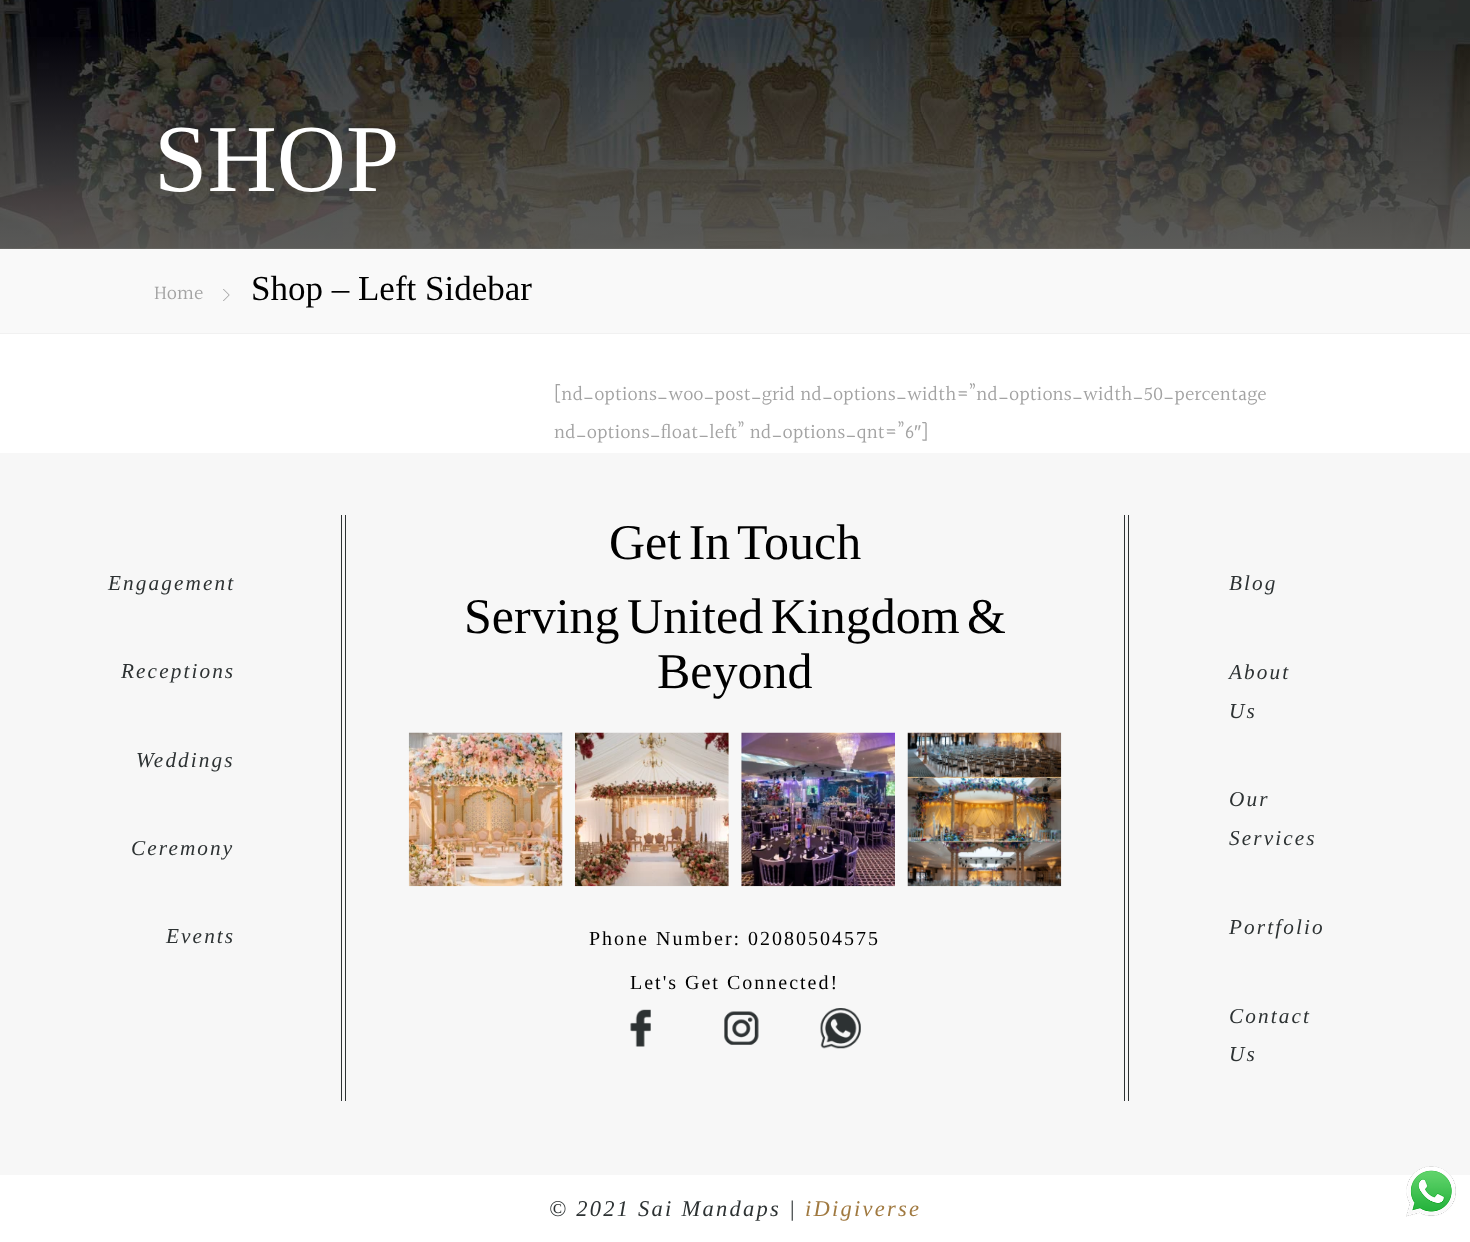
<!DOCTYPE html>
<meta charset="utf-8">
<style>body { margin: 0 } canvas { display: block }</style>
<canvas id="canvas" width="1470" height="1242"></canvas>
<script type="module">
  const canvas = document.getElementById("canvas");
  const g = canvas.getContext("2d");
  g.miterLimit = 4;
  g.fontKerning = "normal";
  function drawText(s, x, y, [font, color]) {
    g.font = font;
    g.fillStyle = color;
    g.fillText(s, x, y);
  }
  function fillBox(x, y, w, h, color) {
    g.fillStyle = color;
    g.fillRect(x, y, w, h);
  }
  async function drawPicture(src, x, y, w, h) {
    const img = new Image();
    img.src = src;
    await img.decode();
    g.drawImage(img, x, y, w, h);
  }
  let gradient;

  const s1 = ["96px Liberation Serif", "#FFFFFF"];
  const s2 = ["20px Halant", "#A3A3A3"];
  const s3 = ["35px Liberation Serif", "#000000"];
  const s4 = ["20px Liberation Sans", "#A3A3A3"];
  const s5 = ["italic 21.25px Liberation Serif", "#2D3233"];
  const s6 = ["50px Liberation Serif", "#000000"];
  const s7 = ["20px Liberation Serif", "#000000"];
  const s8 = ["italic 22.5px Liberation Serif", "#2D3233"];
  const s9 = ["italic 22.5px Liberation Serif", "#A07940"];

  fillBox(0, 0, 1470, 1242, "#FFFFFF");
  await drawPicture("pic1.png", 0, 0, 1470, 249);
  gradient = g.createLinearGradient(735, -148, 735, 249);
  gradient.addColorStop(0, "rgba(101, 100, 96, 0.8)");
  gradient.addColorStop(0.35, "rgba(101, 100, 96, 0)");
  gradient.addColorStop(0.45, "rgba(101, 100, 96, 0)");
  gradient.addColorStop(1, "rgba(101, 100, 96, 0.8)");
  g.fillStyle = gradient;
  g.fillRect(0, 37, 1470, 212);
  drawText("SHOP", 154, 191, s1);
  fillBox(0, 249, 1470, 84, "#F9F9F9");
  fillBox(0, 333, 1470, 1, "#F1F1F1");
  drawText("Home", 154, 300, s2);
  await drawPicture("pic2.png", 223, 289, 7, 12);
  drawText("Shop – Left Sidebar", 251, 300, s3);
  drawText("[nd_options_woo_post_grid nd_options_width=”nd_options_width_50_percentage", 554, 401, s2);
  drawText("nd_options_float_left” nd_options_qnt=”6", 554, 439, s2);
  drawText("″", 914, 439, s4);
  drawText("]", 921, 439, s2);
  fillBox(0, 453, 1470, 722, "#F7F7F7");
  g.letterSpacing = "2.1px";
  drawText("Engagement", 108, 590, s5);
  drawText("Receptions", 121, 678, s5);
  drawText("Weddings", 136, 767, s5);
  drawText("Ceremony", 131, 855, s5);
  drawText("Events", 166, 943, s5);
  fillBox(1124, 515, 1, 586, "#2D3233");
  fillBox(1128, 515, 1, 586, "#2D3233");
  fillBox(341, 515, 1, 586, "#2D3233");
  fillBox(345, 515, 1, 586, "#2D3233");
  g.letterSpacing = "0px";
  g.wordSpacing = "-5px";
  drawText("Get In Touch", 609, 559, s6);
  drawText("Serving United Kingdom &", 464, 633, s6);
  g.wordSpacing = "0px";
  drawText("Beyond", 657, 688, s6);
  await drawPicture("pic3.png", 408, 732, 155, 155);
  await drawPicture("pic4.png", 575, 732, 154, 155);
  await drawPicture("pic5.png", 741, 732, 154, 155);
  await drawPicture("pic6.png", 907, 732, 155, 155);
  g.letterSpacing = "2px";
  drawText("Phone Number: 02080504575", 589, 945, s7);
  drawText("Let's Get Connected!", 630, 989, s7);
  await drawPicture("pic7.png", 630, 1009, 21, 38);
  await drawPicture("pic8.png", 724, 1011, 35, 34);
  await drawPicture("pic9.png", 820, 1008, 41, 41);
  g.letterSpacing = "2.1px";
  drawText("Blog", 1229, 590, s5);
  drawText("About", 1229, 679, s5);
  drawText("Us", 1229, 718, s5);
  drawText("Our", 1229, 806, s5);
  drawText("Services", 1229, 845, s5);
  drawText("Portfolio", 1229, 934, s5);
  drawText("Contact", 1229, 1023, s5);
  drawText("Us", 1229, 1061, s5);
  g.letterSpacing = "2.25px";
  drawText("© 2021 Sai Mandaps |", 549, 1216, s8);
  drawText("iDigiverse", 805, 1216, s9);
  await drawPicture("pic10.png", 1406, 1166, 50, 51);
</script>
